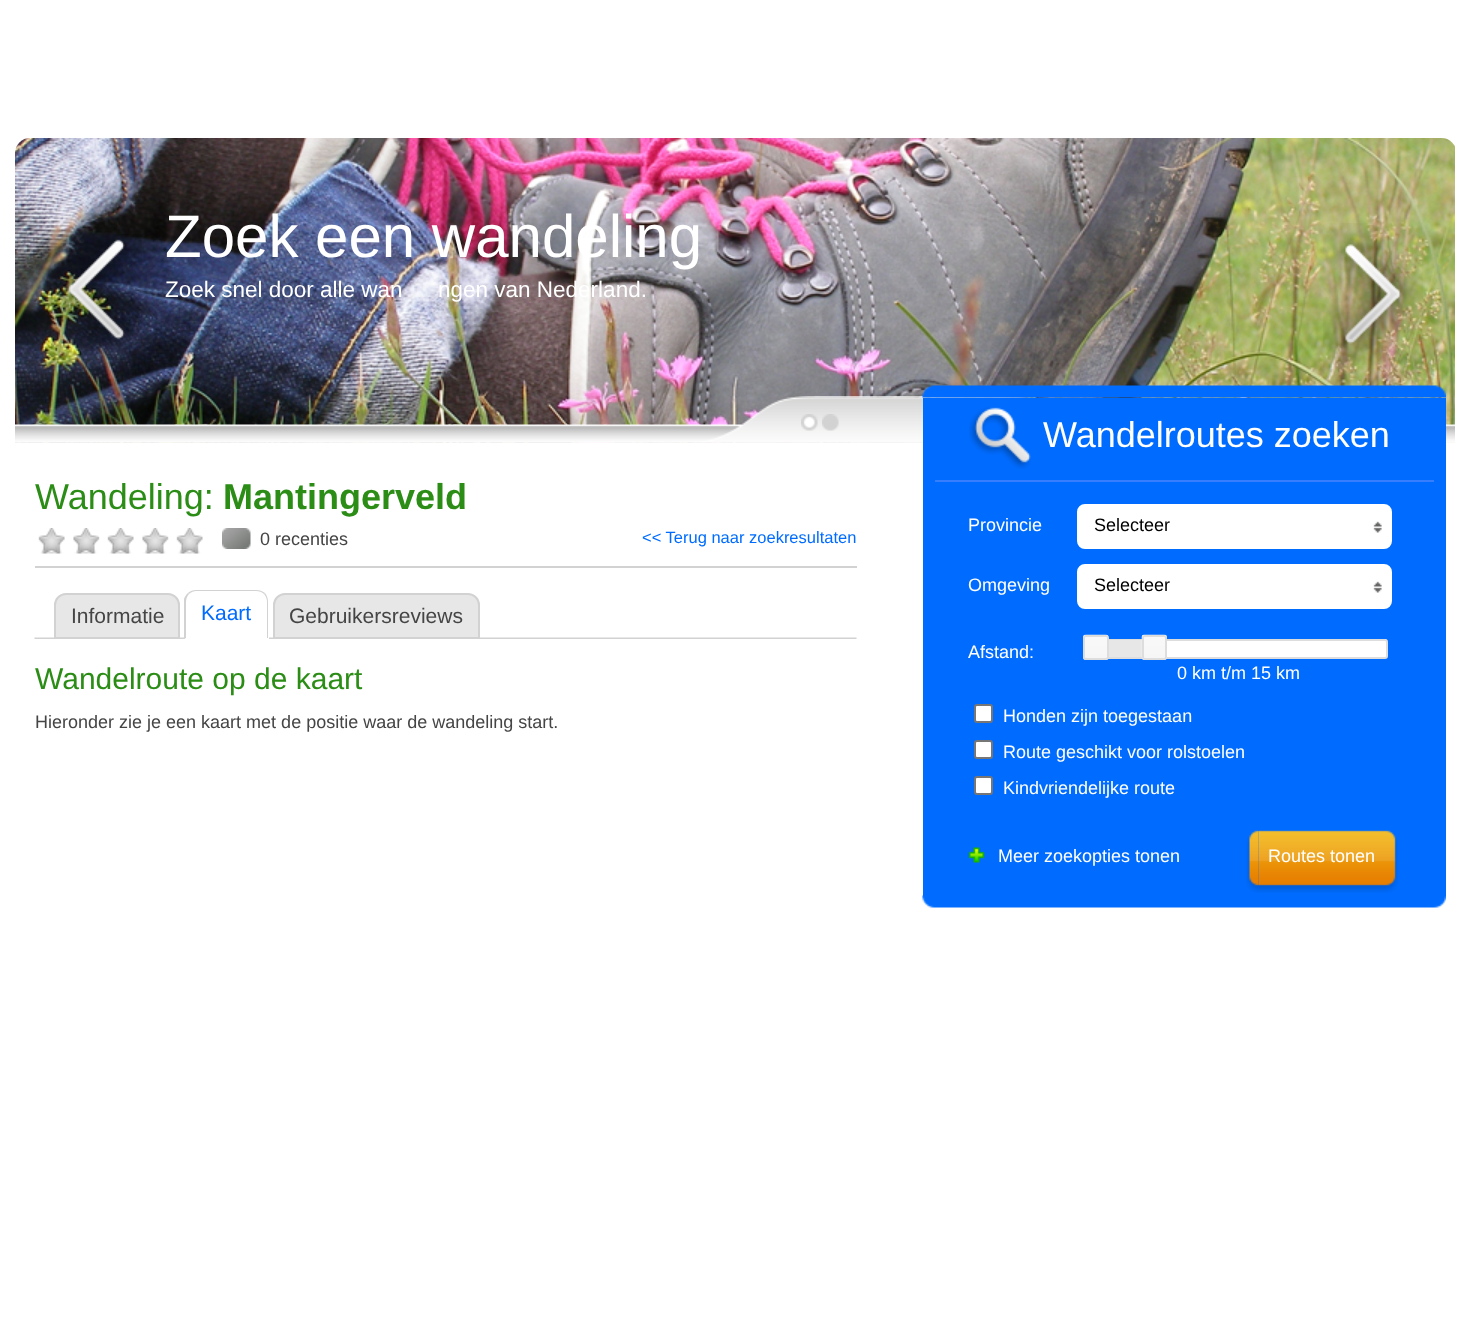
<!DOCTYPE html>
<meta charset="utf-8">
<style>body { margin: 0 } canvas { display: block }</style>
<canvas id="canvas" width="1470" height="1323"></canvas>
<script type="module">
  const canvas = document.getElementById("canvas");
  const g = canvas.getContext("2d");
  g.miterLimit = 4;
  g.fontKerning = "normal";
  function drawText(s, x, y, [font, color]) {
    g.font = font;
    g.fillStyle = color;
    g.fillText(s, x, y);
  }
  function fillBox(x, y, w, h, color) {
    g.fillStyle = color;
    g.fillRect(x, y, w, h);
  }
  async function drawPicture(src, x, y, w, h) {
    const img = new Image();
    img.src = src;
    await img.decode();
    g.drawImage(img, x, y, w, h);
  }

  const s1 = ["60px Liberation Sans", "#FFFFFF"];
  const s2 = ["22.5px Liberation Sans", "#FFFFFF"];
  const s3 = ["36px Liberation Sans", "#2B8D16"];
  const s4 = ["bold 36px Liberation Sans", "#2B8D16"];
  const s5 = ["18px Liberation Sans", "#454545"];
  const s6 = ["16.5px Liberation Sans", "#006CFF"];
  const s7 = ["21px Liberation Sans", "#454545"];
  const s8 = ["21px Liberation Sans", "#006CFF"];
  const s9 = ["30px Liberation Sans", "#2B8D16"];
  const s10 = ["36px Liberation Sans", "#FFFFFF"];
  const s11 = ["18px Liberation Sans", "#FFFFFF"];
  const s12 = ["18px Liberation Sans", "#000000"];

  fillBox(0, 0, 1470, 1323, "#FFFFFF");
  await drawPicture("pic2.png", 15, 138, 1440, 305);
  await drawPicture("pic1.png", 47, 234, 95, 124);
  drawText("Zoek een wandeling", 165, 257, s1);
  drawText("Zoek snel door alle wan", 165, 297, s2);
  drawText("ngen van Nederland.", 438, 297, s2);
  await drawPicture("pic3.png", 1323, 223, 100, 142);
  await drawPicture("pic4.png", 15, 396, 1440, 47);
  await drawPicture("pic5.png", 801, 414, 17, 17);
  await drawPicture("pic6.png", 822, 414, 17, 17);
  drawText("Wandeling:", 35, 509, s3);
  drawText("Mantingerveld", 223, 509, s4);
  fillBox(35, 566, 822, 2, "#D2D2D2");
  await drawPicture("pic7.png", 38, 528, 165, 26);
  await drawPicture("pic8.png", 222, 528, 29, 21);
  drawText("0 recenties", 260, 545, s5);
  drawText("<< Terug naar zoekresultaten", 642, 543, s6);
  await drawPicture("pic9.png", 34, 637, 823, 2);
  g.fillStyle = "#E7E7E7";
  g.beginPath();
  g.roundRect(55, 594, 124, 44, [11, 11, 0, 0]);
  g.fill();
  g.strokeStyle = "#D2D2D2";
  g.lineWidth = 2;
  g.stroke();
  drawText("Informatie", 71, 623, s7);
  g.fillStyle = "#FFFFFF";
  g.beginPath();
  g.roundRect(185, 590, 84, 49, [12, 12, 0, 0]);
  g.fill();
  g.fillStyle = "#D2D2D2";
  g.beginPath();
  g.moveTo(196, 590);
  g.bezierCurveTo(193, 590, 190, 591, 188, 593);
  g.lineTo(189, 594);
  g.bezierCurveTo(191, 592, 194, 591, 196, 591);
  g.lineTo(256, 591);
  g.bezierCurveTo(259, 591, 262, 592, 264, 594);
  g.lineTo(265, 593);
  g.bezierCurveTo(262, 591, 260, 590, 256, 590);
  g.closePath();
  g.fill();
  g.beginPath();
  g.moveTo(268, 638);
  g.lineTo(268, 602);
  g.bezierCurveTo(268, 598, 267, 596, 265, 593);
  g.lineTo(264, 594);
  g.bezierCurveTo(266, 596, 267, 599, 267, 602);
  g.lineTo(267, 638);
  g.closePath();
  g.fill();
  g.fillStyle = "#FFFFFF";
  g.beginPath();
  g.moveTo(184, 639);
  g.lineTo(268, 639);
  g.lineTo(268, 638);
  g.lineTo(267, 638);
  g.lineTo(186, 638);
  g.closePath();
  g.fill();
  g.fillStyle = "#D2D2D2";
  g.beginPath();
  g.moveTo(184, 639);
  g.lineTo(186, 638);
  g.lineTo(186, 602);
  g.bezierCurveTo(186, 599, 187, 596, 189, 594);
  g.lineTo(188, 593);
  g.bezierCurveTo(186, 595, 185, 596, 184, 599);
  g.closePath();
  g.fill();
  drawText("Kaart", 201, 620, s8);
  g.fillStyle = "#E7E7E7";
  g.beginPath();
  g.roundRect(274, 594, 205, 44, [11, 11, 0, 0]);
  g.fill();
  g.stroke();
  drawText("Gebruikersreviews", 289, 623, s7);
  drawText("Wandelroute op de kaart", 35, 689, s9);
  drawText("Hieronder zie je een kaart met de positie waar de wandeling start.", 35, 728, s5);
  await drawPicture("pic10.png", 922, 385, 524, 13);
  fillBox(923, 398, 523, 498, "#006CFF");
  await drawPicture("pic11.png", 969, 407, 62, 62);
  drawText("Wandelroutes zoeken", 1043, 447, s10);
  fillBox(935, 480, 499, 2, "#377EFF");
  drawText("Provincie", 968, 531, s11);
  g.beginPath();
  g.roundRect(1078, 505, 313, 43, 7);
  g.fill();
  g.strokeStyle = "#FFFFFF";
  g.stroke();
  drawText("Selecteer", 1094, 531, s12);
  await drawPicture("pic12.png", 1373, 521, 9, 12);
  drawText("Omgeving", 968, 591, s11);
  g.beginPath();
  g.roundRect(1078, 565, 313, 43, 7);
  g.fill();
  g.stroke();
  drawText("Selecteer", 1094, 591, s12);
  await drawPicture("pic12.png", 1373, 581, 9, 12);
  drawText("Afstand:", 968, 658, s11);
  await drawPicture("pic13.png", 1167, 639, 221, 20);
  g.beginPath();
  g.roundRect(1093, 640, 294, 18, 2);
  g.strokeStyle = "#DDDDDD";
  g.stroke();
  await drawPicture("pic14.png", 1083, 634, 26, 26);
  g.beginPath();
  g.roundRect(1084, 636, 24, 23, 2);
  g.stroke();
  fillBox(1109, 640, 33, 17, "#E7E7E7");
  await drawPicture("pic15.png", 1141, 634, 26, 26);
  g.beginPath();
  g.roundRect(1143, 636, 23, 23, 2);
  g.stroke();
  drawText("0 km t/m 15 km", 1177, 679, s11);
  g.beginPath();
  g.roundRect(975, 705, 17, 17, 2);
  g.fill();
  g.strokeStyle = "#767676";
  g.stroke();
  drawText("Honden zijn toegestaan", 1003, 722, s11);
  g.beginPath();
  g.roundRect(975, 741, 17, 17, 2);
  g.fill();
  g.stroke();
  drawText("Route geschikt voor rolstoelen", 1003, 758, s11);
  g.beginPath();
  g.roundRect(975, 777, 17, 17, 2);
  g.fill();
  g.stroke();
  drawText("Kindvriendelijke route", 1003, 794, s11);
  await drawPicture("pic16.png", 968, 847, 17, 16);
  drawText("Meer zoekopties tonen", 998, 862, s11);
  await drawPicture("pic18.png", 1258, 830, 128, 63);
  await drawPicture("pic17.png", 1246, 830, 13, 63);
  drawText("Routes tonen", 1268, 862, s11);
  await drawPicture("pic19.png", 1386, 830, 12, 63);
  await drawPicture("pic20.png", 922, 895, 524, 13);
</script>
